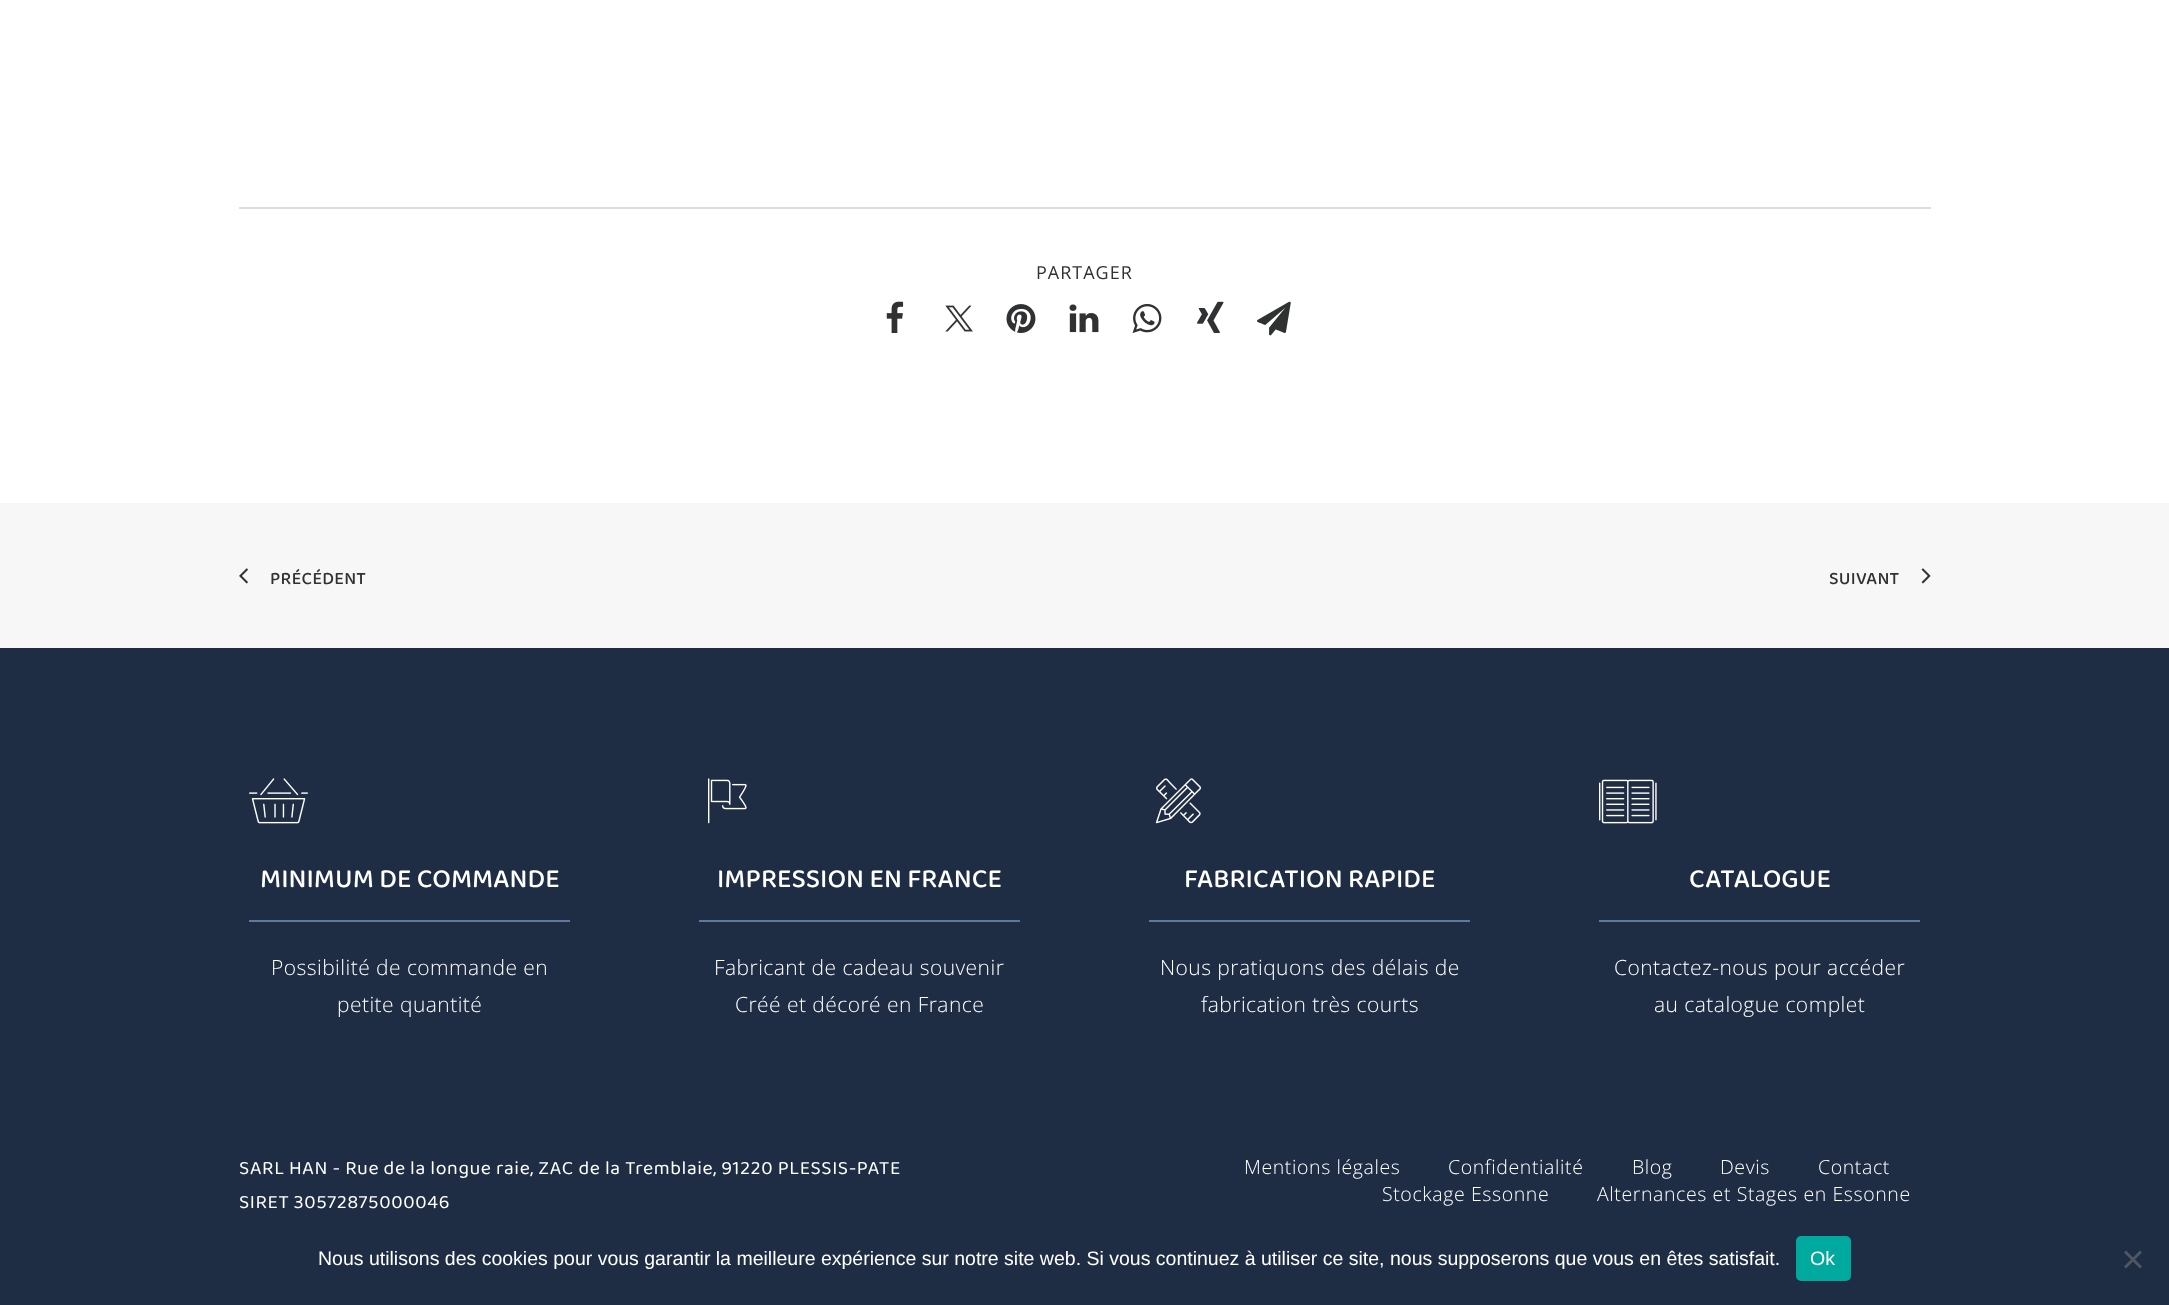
<!DOCTYPE html>
<meta charset="utf-8">
<style>body { margin: 0 } canvas { display: block }</style>
<canvas id="canvas" width="2169" height="1305"></canvas>
<script type="module">
  const canvas = document.getElementById("canvas");
  const g = canvas.getContext("2d");
  g.miterLimit = 4;
  g.fontKerning = "normal";
  function drawText(s, x, y, [font, color]) {
    g.font = font;
    g.fillStyle = color;
    g.fillText(s, x, y);
  }
  function fillBox(x, y, w, h, color) {
    g.fillStyle = color;
    g.fillRect(x, y, w, h);
  }
  function fillRounded(x, y, w, h, r, color) {
    g.fillStyle = color;
    g.beginPath();
    g.roundRect(x, y, w, h, r);
    g.fill();
  }
  async function drawPicture(src, x, y, w, h) {
    const img = new Image();
    img.src = src;
    await img.decode();
    g.drawImage(img, x, y, w, h);
  }

  const s1 = ["18px Open Sans", "#303133"];
  const s2 = ["500 18px 'Baloo 2'", "#303133"];
  const s3 = ["500 27px 'Baloo 2'", "#FFFFFF"];
  const s4 = ["300 21px Open Sans", "#FFFFFF"];
  const s5 = ["19.5px 'Baloo 2'", "#FFFFFF"];
  const s6 = ["300 19.5px Open Sans", "#FFFFFF"];
  const s7 = ["19.5px Liberation Sans", "#FFFFFF"];

  fillBox(0, 0, 2169, 1305, "#FFFFFF");
  fillBox(239, 207, 1692, 2, "#DDDDDD");
  g.letterSpacing = "1px";
  drawText("PARTAGER", 1036, 279, s1);
  await drawPicture("pic1.png", 886, 301, 18, 32);
  await drawPicture("pic2.png", 945, 305, 28, 27);
  await drawPicture("pic3.png", 1006, 304, 30, 29);
  await drawPicture("pic4.png", 1069, 304, 30, 29);
  await drawPicture("pic5.png", 1132, 303, 30, 31);
  await drawPicture("pic6.png", 1197, 301, 27, 32);
  await drawPicture("pic7.png", 1257, 301, 34, 35);
  fillBox(0, 503, 2169, 145, "#F7F7F7");
  await drawPicture("pic8.png", 239, 568, 9, 16);
  g.letterSpacing = "0.25px";
  drawText("PRÉCÉDENT", 270, 584, s2);
  drawText("SUIVANT", 1829, 584, s2);
  await drawPicture("pic9.png", 1921, 568, 10, 16);
  fillBox(0, 648, 2169, 657, "#1E2D44");
  await drawPicture("pic10.png", 249, 778, 59, 46);
  g.letterSpacing = "0px";
  drawText("MINIMUM DE COMMANDE", 260, 887, s3);
  fillBox(249, 920, 321, 2, "#5E78A2");
  g.letterSpacing = "0.45px";
  drawText("Possibilité de commande en", 271, 975, s4);
  drawText("petite quantité", 337, 1012, s4);
  await drawPicture("pic11.png", 708, 778, 39, 46);
  g.letterSpacing = "0px";
  drawText("IMPRESSION EN FRANCE", 717, 887, s3);
  fillBox(699, 920, 321, 2, "#5E78A2");
  g.letterSpacing = "0.45px";
  drawText("Fabricant de cadeau souvenir", 714, 975, s4);
  drawText("Créé et décoré en France", 735, 1012, s4);
  await drawPicture("pic12.png", 1155, 778, 46, 46);
  g.letterSpacing = "0px";
  drawText("FABRICATION RAPIDE", 1184, 887, s3);
  fillBox(1149, 920, 321, 2, "#5E78A2");
  g.letterSpacing = "0.45px";
  drawText("Nous pratiquons des délais de", 1160, 975, s4);
  drawText("fabrication très courts", 1201, 1012, s4);
  await drawPicture("pic13.png", 1599, 779, 58, 45);
  g.letterSpacing = "0px";
  drawText("CATALOGUE", 1689, 887, s3);
  fillBox(1599, 920, 321, 2, "#5E78A2");
  g.letterSpacing = "0.45px";
  drawText("Contactez-nous pour accéder", 1614, 975, s4);
  drawText("au catalogue complet", 1654, 1012, s4);
  g.letterSpacing = "0.6px";
  drawText("SARL HAN - Rue de la longue raie, ZAC de la Tremblaie, 91220 PLESSIS-PATE", 239, 1174, s5);
  drawText("SIRET 30572875000046", 239, 1208, s5);
  drawText("Mentions légales", 1244, 1174, s6);
  drawText("Confidentialité", 1448, 1174, s6);
  drawText("Blog", 1632, 1174, s6);
  drawText("Devis", 1720, 1174, s6);
  drawText("Contact", 1818, 1174, s6);
  drawText("Stockage Essonne", 1382, 1201, s6);
  drawText("Alternances et Stages en Essonne", 1597, 1201, s6);
  g.letterSpacing = "0px";
  drawText("Nous utilisons des cookies pour vous garantir la meilleure expérience sur notre site web. Si vous continuez à utiliser ce site, nous supposerons que vous en êtes satisfait.", 318, 1265, s7);
  fillRounded(1796, 1236, 55, 45, 5, "#00A99D");
  drawText("Ok", 1810, 1265, s7);
  g.fillStyle = "#4F5762";
  g.beginPath();
  g.moveTo(2140, 1250.5);
  g.lineTo(2142, 1252.5);
  g.lineTo(2126, 1268.5);
  g.lineTo(2124, 1266.5);
  g.closePath();
  g.fill();
  g.beginPath();
  g.moveTo(2124, 1252.5);
  g.lineTo(2126, 1250.5);
  g.lineTo(2142, 1266.5);
  g.lineTo(2140, 1268.5);
  g.closePath();
  g.fill();
</script>
